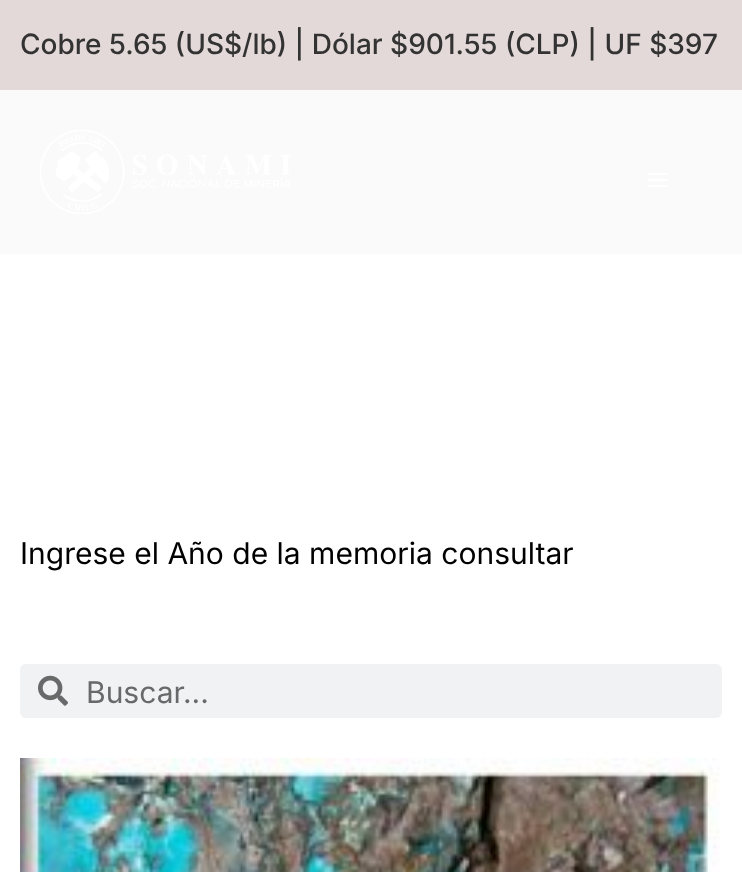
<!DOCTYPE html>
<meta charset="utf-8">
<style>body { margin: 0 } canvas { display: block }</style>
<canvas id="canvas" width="742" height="872"></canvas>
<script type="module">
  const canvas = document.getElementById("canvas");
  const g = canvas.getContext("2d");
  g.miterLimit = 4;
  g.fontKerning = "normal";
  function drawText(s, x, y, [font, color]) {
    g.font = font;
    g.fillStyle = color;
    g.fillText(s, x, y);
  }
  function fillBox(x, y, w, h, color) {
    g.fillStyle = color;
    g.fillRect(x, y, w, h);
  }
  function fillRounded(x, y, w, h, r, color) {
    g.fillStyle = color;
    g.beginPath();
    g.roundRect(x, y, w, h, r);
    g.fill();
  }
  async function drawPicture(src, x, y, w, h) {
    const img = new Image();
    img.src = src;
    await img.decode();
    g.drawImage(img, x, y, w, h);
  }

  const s1 = ["500 28px Inter", "#333333"];
  const s2 = ["30px Inter", "#000000"];
  const s3 = ["30px Inter", "#686969"];

  fillBox(0, 0, 742, 872, "#FFFFFF");
  fillBox(0, 0, 742, 90, "#E3D9D8");
  drawText("Cobre 5.65 (US$/lb) | Dólar $901.55 (CLP) | UF $397", 20, 54, s1);
  fillBox(0, 90, 742, 164, "#FAFAFA");
  await drawPicture("pic1.png", 40, 130, 250, 84);
  await drawPicture("pic2.png", 648, 173, 20, 14);
  drawText("Ingrese el Año de la memoria consultar", 20, 564, s2);
  fillRounded(20, 664, 702, 54, 6, "#F1F2F3");
  await drawPicture("pic3.png", 38, 675, 30, 31);
  drawText("Buscar...", 86, 703, s3);
  await drawPicture("pic4.png", 20, 758, 700, 114);
</script>
